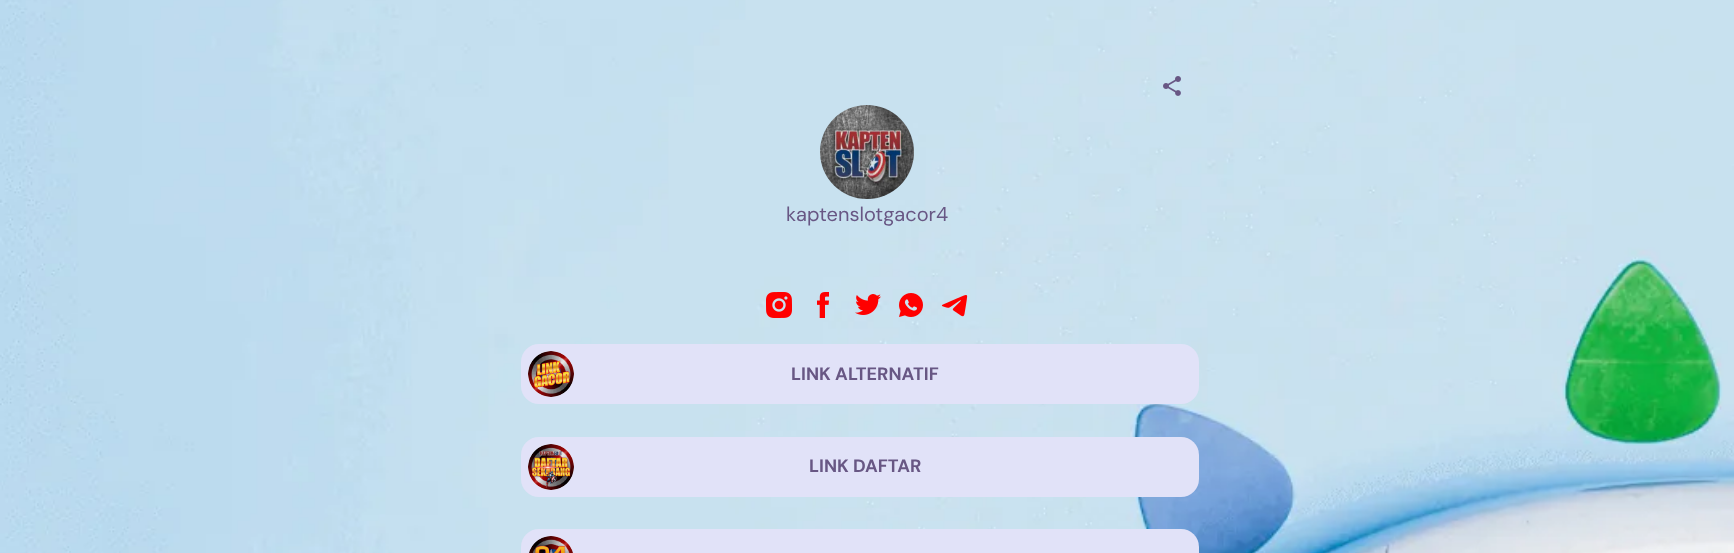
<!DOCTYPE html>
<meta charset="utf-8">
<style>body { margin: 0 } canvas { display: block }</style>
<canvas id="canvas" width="1734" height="553"></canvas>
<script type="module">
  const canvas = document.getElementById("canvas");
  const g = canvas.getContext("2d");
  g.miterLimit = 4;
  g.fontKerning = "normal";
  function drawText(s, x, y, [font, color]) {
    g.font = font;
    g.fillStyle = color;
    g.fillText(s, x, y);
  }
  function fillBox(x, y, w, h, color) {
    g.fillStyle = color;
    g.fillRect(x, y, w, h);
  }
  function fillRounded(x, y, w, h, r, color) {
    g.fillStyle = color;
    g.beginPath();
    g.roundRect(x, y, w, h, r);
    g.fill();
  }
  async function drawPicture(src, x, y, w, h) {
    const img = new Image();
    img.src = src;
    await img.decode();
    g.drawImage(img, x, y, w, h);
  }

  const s1 = ["20px DM Sans", "#685784"];
  const s2 = ["bold 18px DM Sans", "#685784"];

  fillBox(0, 0, 1734, 553, "#FFFFFF");
  await drawPicture("pic1.png", 0, 0, 1734, 553);
  await drawPicture("pic2.png", 1163, 76, 18, 20);
  await drawPicture("pic3.png", 820, 105, 94, 94);
  drawText("kaptenslotgacor4", 786, 221, s1);
  await drawPicture("pic4.png", 766, 292, 26, 26);
  await drawPicture("pic5.png", 817, 292, 12, 26);
  await drawPicture("pic6.png", 855, 294, 26, 21);
  await drawPicture("pic7.png", 899, 293, 24, 24);
  await drawPicture("pic8.png", 941, 295, 27, 22);
  fillRounded(521, 344, 678, 60, 18, "#E1E2F8");
  await drawPicture("pic9.png", 528, 351, 46, 46);
  drawText("LINK ALTERNATIF", 791, 380, s2);
  fillRounded(521, 437, 678, 60, 18, "#E1E2F8");
  await drawPicture("pic10.png", 528, 444, 46, 46);
  drawText("LINK DAFTAR", 809, 472, s2);
  fillRounded(521, 529, 678, 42, 18, "#E1E2F8");
  await drawPicture("pic11.png", 529, 536, 44, 17);
</script>
